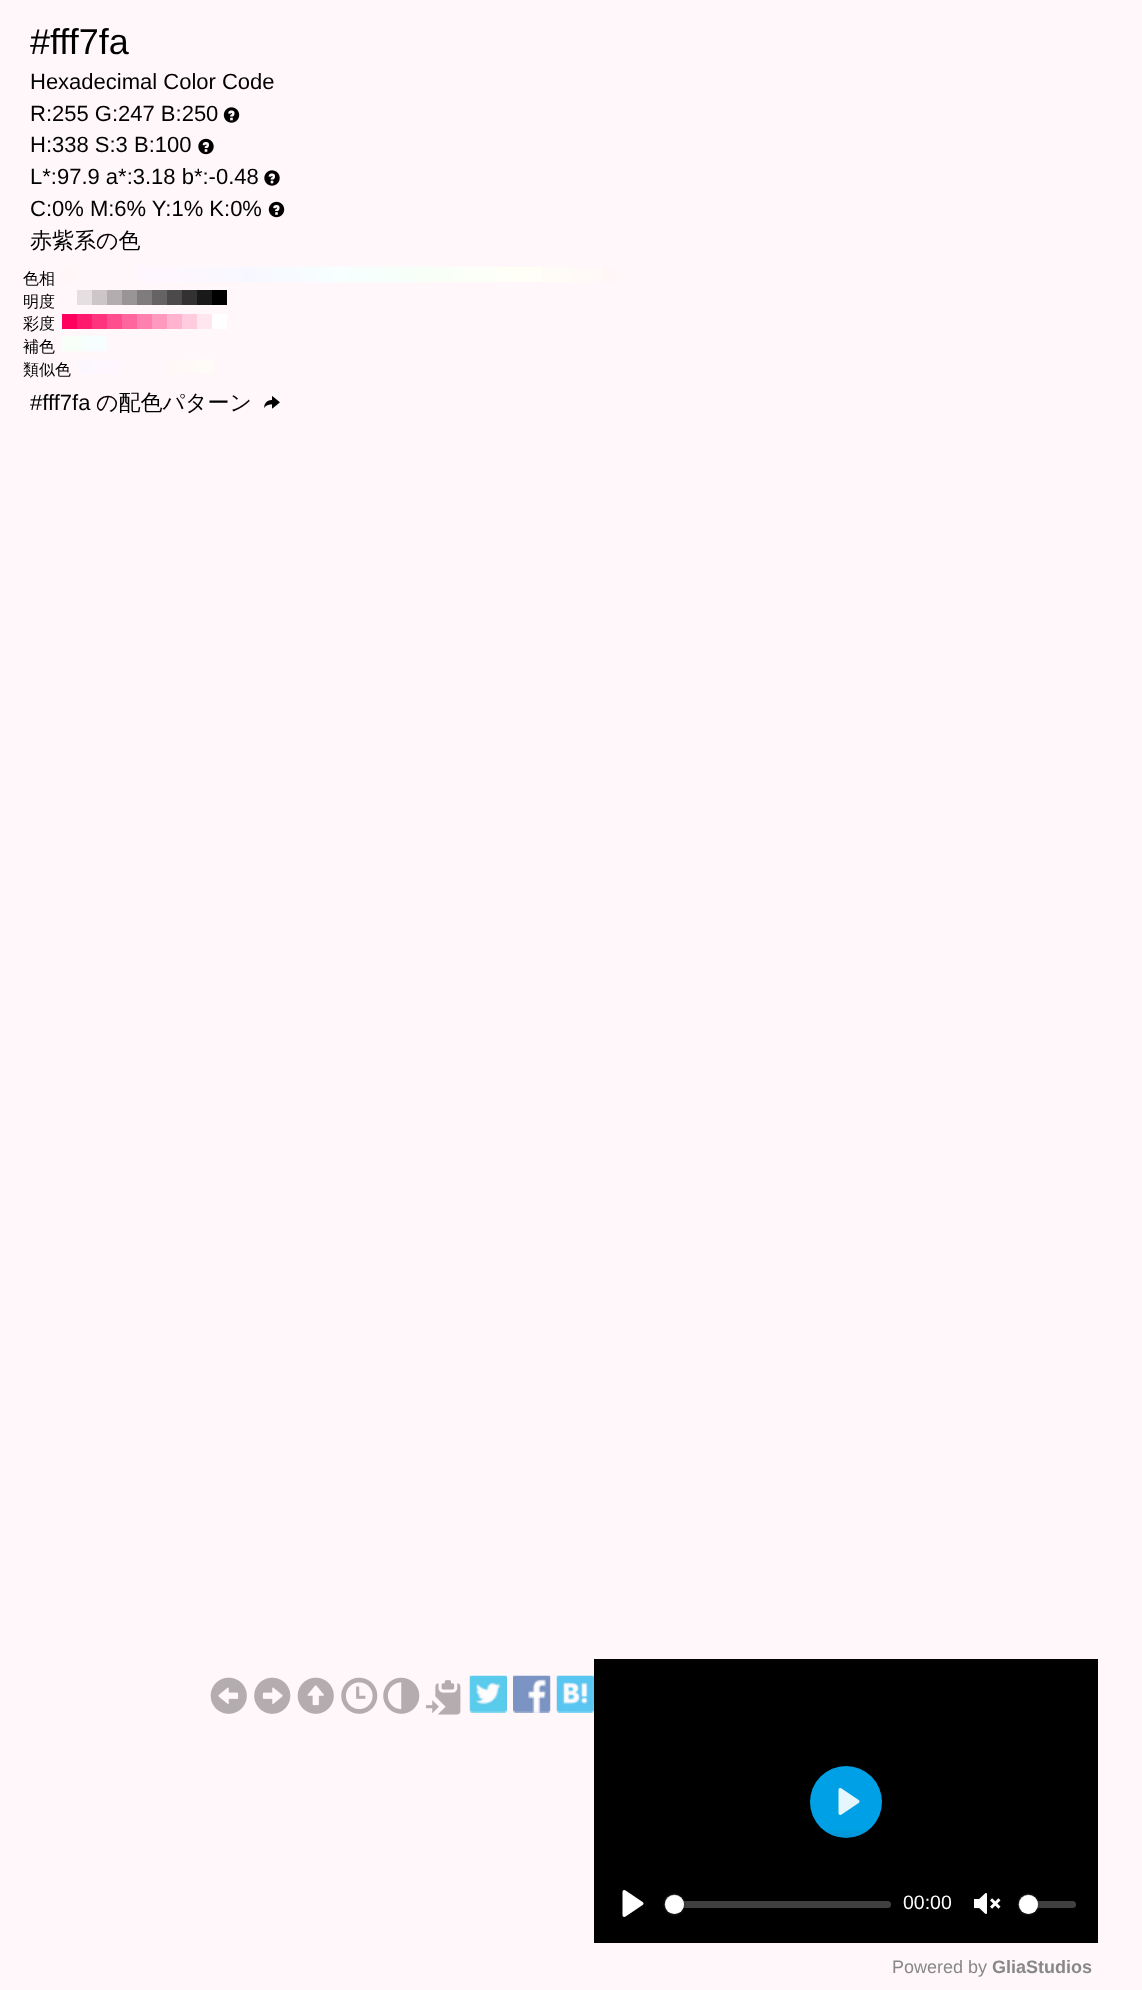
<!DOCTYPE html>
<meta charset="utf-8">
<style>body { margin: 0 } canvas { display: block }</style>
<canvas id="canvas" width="1142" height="1990"></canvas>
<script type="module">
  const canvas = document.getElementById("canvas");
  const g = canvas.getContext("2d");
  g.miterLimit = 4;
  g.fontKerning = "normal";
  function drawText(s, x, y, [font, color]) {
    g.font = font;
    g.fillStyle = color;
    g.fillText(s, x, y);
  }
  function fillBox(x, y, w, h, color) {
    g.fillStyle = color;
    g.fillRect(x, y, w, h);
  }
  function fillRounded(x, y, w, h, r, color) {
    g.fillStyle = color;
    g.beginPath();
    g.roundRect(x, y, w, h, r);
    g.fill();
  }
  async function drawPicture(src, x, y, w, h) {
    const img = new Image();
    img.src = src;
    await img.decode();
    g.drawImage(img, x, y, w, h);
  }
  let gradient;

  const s1 = ["36px Liberation Sans", "#000000"];
  const s2 = ["22px Liberation Sans", "#000000"];
  const s3 = ["500 22px WenQuanYi Zen Hei", "#000000"];
  const s4 = ["500 16px WenQuanYi Zen Hei", "#000000"];
  const s5 = ["19.5px Liberation Sans", "#FFFFFF"];
  const s6 = ["18px Liberation Sans", "#888888"];
  const s7 = ["bold 18px Liberation Sans", "#888888"];

  fillBox(0, 0, 1142, 1990, "#FFF7FA");
  drawText("#fff7fa", 30, 54, s1);
  drawText("Hexadecimal Color Code", 30, 89, s2);
  drawText("R:255 G:247 B:250", 30, 121, s2);
  await drawPicture("pic1.png", 223, 107, 17, 16);
  drawText("H:338 S:3 B:100", 30, 152, s2);
  await drawPicture("pic2.png", 198, 138, 16, 17);
  drawText("L*:97.9 a*:3.18 b*:-0.48", 30, 184, s2);
  await drawPicture("pic3.png", 264, 170, 16, 16);
  drawText("C:0% M:6% Y:1% K:0%", 30, 216, s2);
  await drawPicture("pic4.png", 268, 201, 17, 17);
  drawText("赤紫系の色", 30, 248, s3);
  drawText("色相", 23, 284, s4);
  fillBox(62, 267, 15, 15, "#FFF7F7");
  fillBox(137, 267, 15, 15, "#FFF7FE");
  fillBox(152, 267, 15, 15, "#FFF7FF");
  fillBox(167, 267, 15, 15, "#FEF7FF");
  fillBox(182, 267, 15, 15, "#FCF7FF");
  fillBox(197, 267, 15, 15, "#FBF7FF");
  fillBox(212, 267, 15, 15, "#FAF7FF");
  fillBox(227, 267, 15, 15, "#F9F7FF");
  fillBox(242, 267, 15, 15, "#F7F7FF");
  fillBox(257, 267, 15, 15, "#F7F9FF");
  fillBox(272, 267, 15, 15, "#F7FAFF");
  fillBox(287, 267, 15, 15, "#F7FBFF");
  fillBox(302, 267, 15, 15, "#F7FCFF");
  fillBox(317, 267, 15, 15, "#F7FEFF");
  fillBox(332, 267, 15, 15, "#F7FFFF");
  fillBox(347, 267, 15, 15, "#F7FFFE");
  fillBox(362, 267, 15, 15, "#F7FFFC");
  fillBox(377, 267, 15, 15, "#F7FFFB");
  fillBox(392, 267, 15, 15, "#F7FFFA");
  fillBox(407, 267, 15, 15, "#F7FFF9");
  fillBox(422, 267, 15, 15, "#F7FFF7");
  fillBox(437, 267, 15, 15, "#F9FFF7");
  fillBox(452, 267, 15, 15, "#FAFFF7");
  fillBox(467, 267, 15, 15, "#FBFFF7");
  fillBox(482, 267, 15, 15, "#FCFFF7");
  fillBox(497, 267, 15, 15, "#FEFFF7");
  fillBox(512, 267, 15, 15, "#FFFFF7");
  fillBox(527, 267, 15, 15, "#FFFEF7");
  fillBox(542, 267, 15, 15, "#FFFCF7");
  fillBox(557, 267, 15, 15, "#FFFBF7");
  fillBox(572, 267, 15, 15, "#FFFAF7");
  fillBox(587, 267, 15, 15, "#FFF9F7");
  fillBox(602, 267, 15, 15, "#FFF7F7");
  drawText("明度", 23, 307, s4);
  fillBox(77, 290, 15, 15, "#E6DFE1");
  fillBox(92, 290, 15, 15, "#CCC6C8");
  fillBox(107, 290, 15, 15, "#B3ADAF");
  fillBox(122, 290, 15, 15, "#999496");
  fillBox(137, 290, 15, 15, "#807C7D");
  fillBox(152, 290, 15, 15, "#666364");
  fillBox(167, 290, 15, 15, "#4D4A4B");
  fillBox(182, 290, 15, 15, "#333132");
  fillBox(197, 290, 15, 15, "#1A1919");
  fillBox(212, 290, 15, 15, "#000000");
  drawText("彩度", 23, 329, s4);
  fillBox(62, 314, 15, 15, "#FF005E");
  fillBox(77, 314, 15, 15, "#FF1A6E");
  fillBox(92, 314, 15, 15, "#FF337E");
  fillBox(107, 314, 15, 15, "#FF4D8E");
  fillBox(122, 314, 15, 15, "#FF669E");
  fillBox(137, 314, 15, 15, "#FF80AE");
  fillBox(152, 314, 15, 15, "#FF99BE");
  fillBox(167, 314, 15, 15, "#FFB3CF");
  fillBox(182, 314, 15, 15, "#FFCCDF");
  fillBox(197, 314, 15, 15, "#FFE6EF");
  fillBox(212, 314, 15, 15, "#FFFFFF");
  drawText("補色", 23, 352, s4);
  fillBox(62, 336, 15, 15, "#F7FFF8");
  fillBox(77, 336, 15, 15, "#F7FFFC");
  fillBox(92, 336, 15, 15, "#F7FEFF");
  drawText("類似色", 23, 375, s4);
  fillBox(78, 359, 15, 15, "#FCF7FF");
  fillBox(93, 359, 15, 15, "#FEF7FF");
  fillBox(108, 359, 15, 15, "#FFF7FE");
  fillBox(168, 359, 15, 15, "#FFF8F7");
  fillBox(183, 359, 15, 15, "#FFFAF7");
  fillBox(198, 359, 15, 15, "#FFFCF7");
  drawText("#fff7fa", 30, 410, s2);
  drawText("の配色パターン", 96, 410, s3);
  await drawPicture("pic5.png", 264, 396, 16, 13);
  await drawPicture("pic6.png", 210, 1677, 37, 37);
  await drawPicture("pic7.png", 254, 1677, 37, 37);
  await drawPicture("pic8.png", 297, 1677, 37, 37);
  await drawPicture("pic9.png", 341, 1677, 37, 37);
  await drawPicture("pic10.png", 383, 1677, 37, 37);
  await drawPicture("pic11.png", 426, 1680, 35, 35);
  await drawPicture("pic12.png", 469, 1675, 38, 38);
  await drawPicture("pic13.png", 513, 1675, 38, 38);
  await drawPicture("pic14.png", 556, 1675, 38, 38);
  fillBox(594, 1659, 504, 284, "#000000");
  g.fillStyle = "#00A0E6";
  g.beginPath();
  g.arc(846, 1802, 36, 0, Math.PI * 2);
  g.fill();
  await drawPicture("pic15.png", 838, 1788, 22, 27);
  await drawPicture("pic16.png", 663, 1893, 377, 23);
  gradient = g.createLinearGradient(846, 1827, 846, 1943);
  gradient.addColorStop(0, "rgba(0, 0, 0, 0)");
  gradient.addColorStop(1, "rgba(0, 0, 0, 0.75)");
  g.fillStyle = gradient;
  g.fillRect(663, 1830, 376, 86);
  await drawPicture("pic17.png", 622, 1890, 22, 27);
  fillRounded(665, 1901, 226, 7, 3.5, "rgba(255, 255, 255, 0.25)");
  g.beginPath();
  g.arc(674.5, 1904.5, 10.5, 0, Math.PI * 2);
  g.strokeStyle = "rgba(35, 40, 47, 0.2)";
  g.lineWidth = 2;
  g.stroke();
  g.fillStyle = "rgba(35, 40, 47, 0.15)";
  g.filter = "blur(1px)";
  g.beginPath();
  g.roundRect(665, 1896, 19, 20, 9.5);
  g.fill();
  g.filter = "none";
  g.fillStyle = "#FFFFFF";
  g.beginPath();
  g.arc(674.5, 1904.5, 9.5, 0, Math.PI * 2);
  g.fill();
  drawText("00:00", 903, 1909, s5);
  await drawPicture("pic18.png", 974, 1893, 27, 21);
  fillRounded(1019, 1901, 57, 7, 3.5, "rgba(255, 255, 255, 0.25)");
  g.beginPath();
  g.arc(1028.5, 1904.5, 10.5, 0, Math.PI * 2);
  g.stroke();
  g.fillStyle = "rgba(35, 40, 47, 0.15)";
  g.filter = "blur(1px)";
  g.beginPath();
  g.roundRect(1019, 1896, 19, 20, 9.5);
  g.fill();
  g.filter = "none";
  g.fillStyle = "#FFFFFF";
  g.beginPath();
  g.arc(1028.5, 1904.5, 9.5, 0, Math.PI * 2);
  g.fill();
  drawText("Powered by", 892, 1973, s6);
  drawText("GliaStudios", 992, 1973, s7);
</script>
